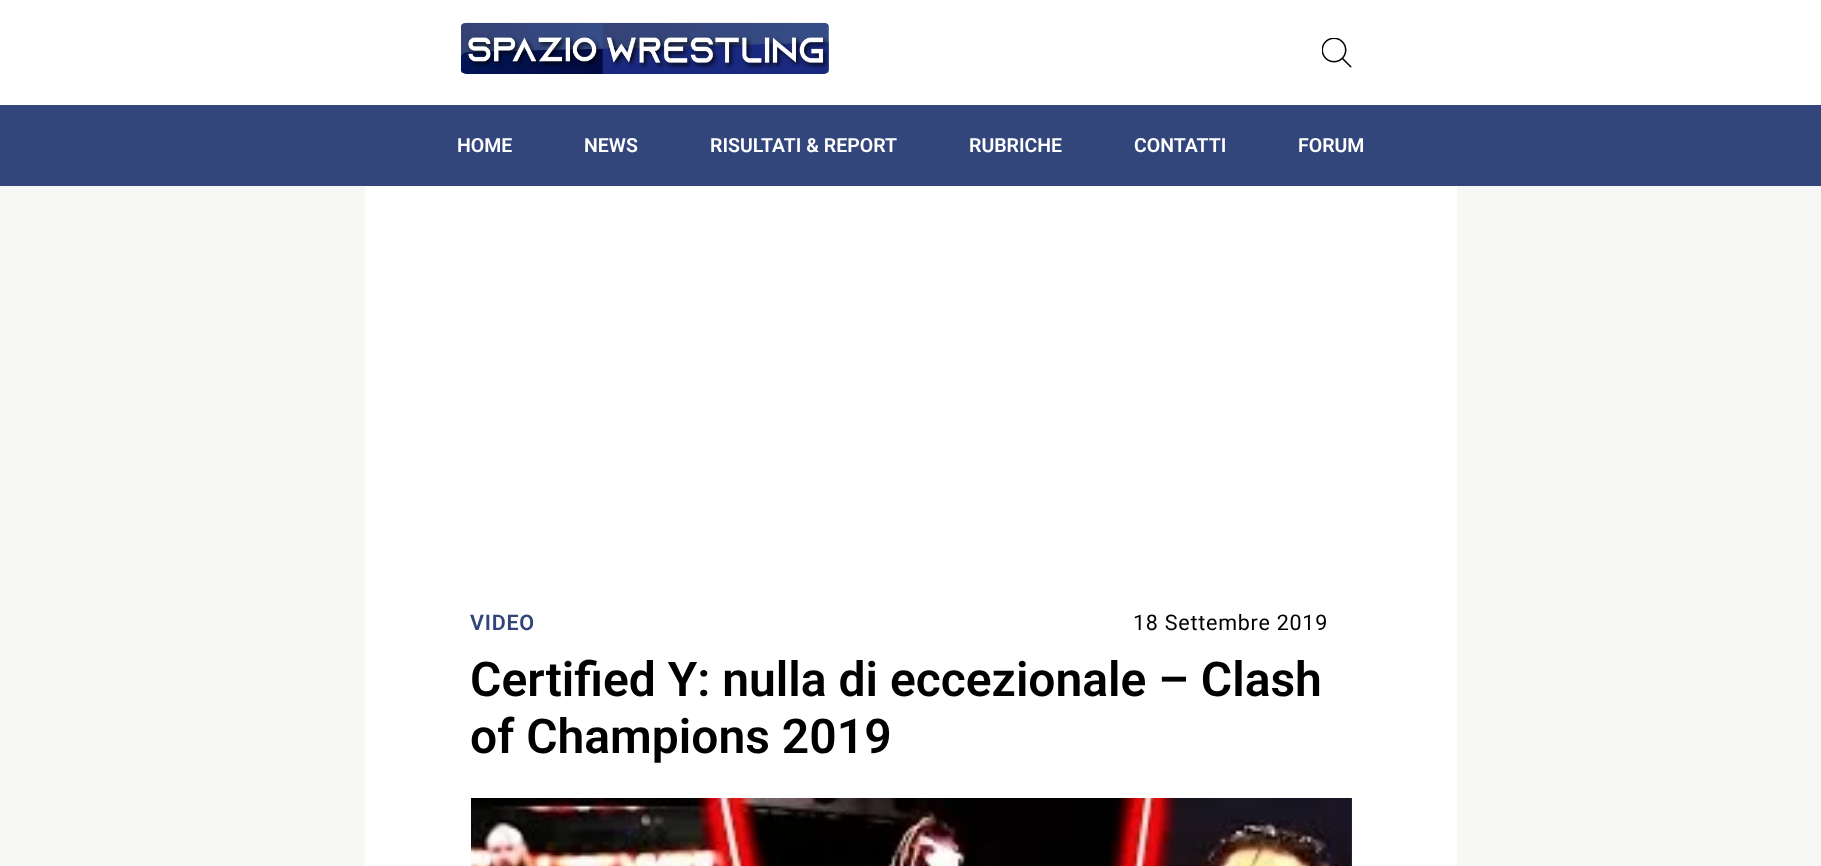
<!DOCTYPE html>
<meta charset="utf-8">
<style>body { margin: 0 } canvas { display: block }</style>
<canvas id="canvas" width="1821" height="866"></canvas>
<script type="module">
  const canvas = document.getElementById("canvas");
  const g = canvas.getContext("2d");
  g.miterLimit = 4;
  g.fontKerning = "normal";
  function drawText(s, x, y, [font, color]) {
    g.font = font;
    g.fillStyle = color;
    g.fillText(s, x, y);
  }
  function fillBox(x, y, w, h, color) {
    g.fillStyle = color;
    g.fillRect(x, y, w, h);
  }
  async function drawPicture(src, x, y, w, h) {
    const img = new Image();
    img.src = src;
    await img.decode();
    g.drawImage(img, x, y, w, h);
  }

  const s1 = ["600 19.5px Roboto", "#FFFFFF"];
  const s2 = ["600 21.5px Roboto", "#33467C"];
  const s3 = ["21.5px Roboto", "#000000"];
  const s4 = ["600 48px Roboto", "#000000"];

  fillBox(0, 0, 1821, 866, "#F7F7F6");
  fillBox(0, 0, 1821, 105, "#FFFFFF");
  await drawPicture("pic1.png", 461, 22, 368, 52);
  await drawPicture("pic2.png", 1322, 38, 30, 30);
  fillBox(0, 105, 1821, 81, "#33467C");
  drawText("HOME", 457, 152, s1);
  drawText("NEWS", 584, 152, s1);
  drawText("RISULTATI & REPORT", 710, 152, s1);
  drawText("RUBRICHE", 969, 152, s1);
  drawText("CONTATTI", 1134, 152, s1);
  drawText("FORUM", 1298, 152, s1);
  fillBox(365, 186, 1092, 680, "#FFFFFF");
  g.letterSpacing = "0.75px";
  drawText("VIDEO", 470, 630, s2);
  drawText("18 Settembre 2019", 1133, 630, s3);
  g.letterSpacing = "0px";
  drawText("Certified Y: nulla di eccezionale – Clash", 470, 696, s4);
  drawText("of Champions 2019", 470, 753, s4);
  fillBox(1351, 798, 1, 68, "#2C2C2C");
  await drawPicture("pic3.png", 471, 798, 881, 68);
</script>
